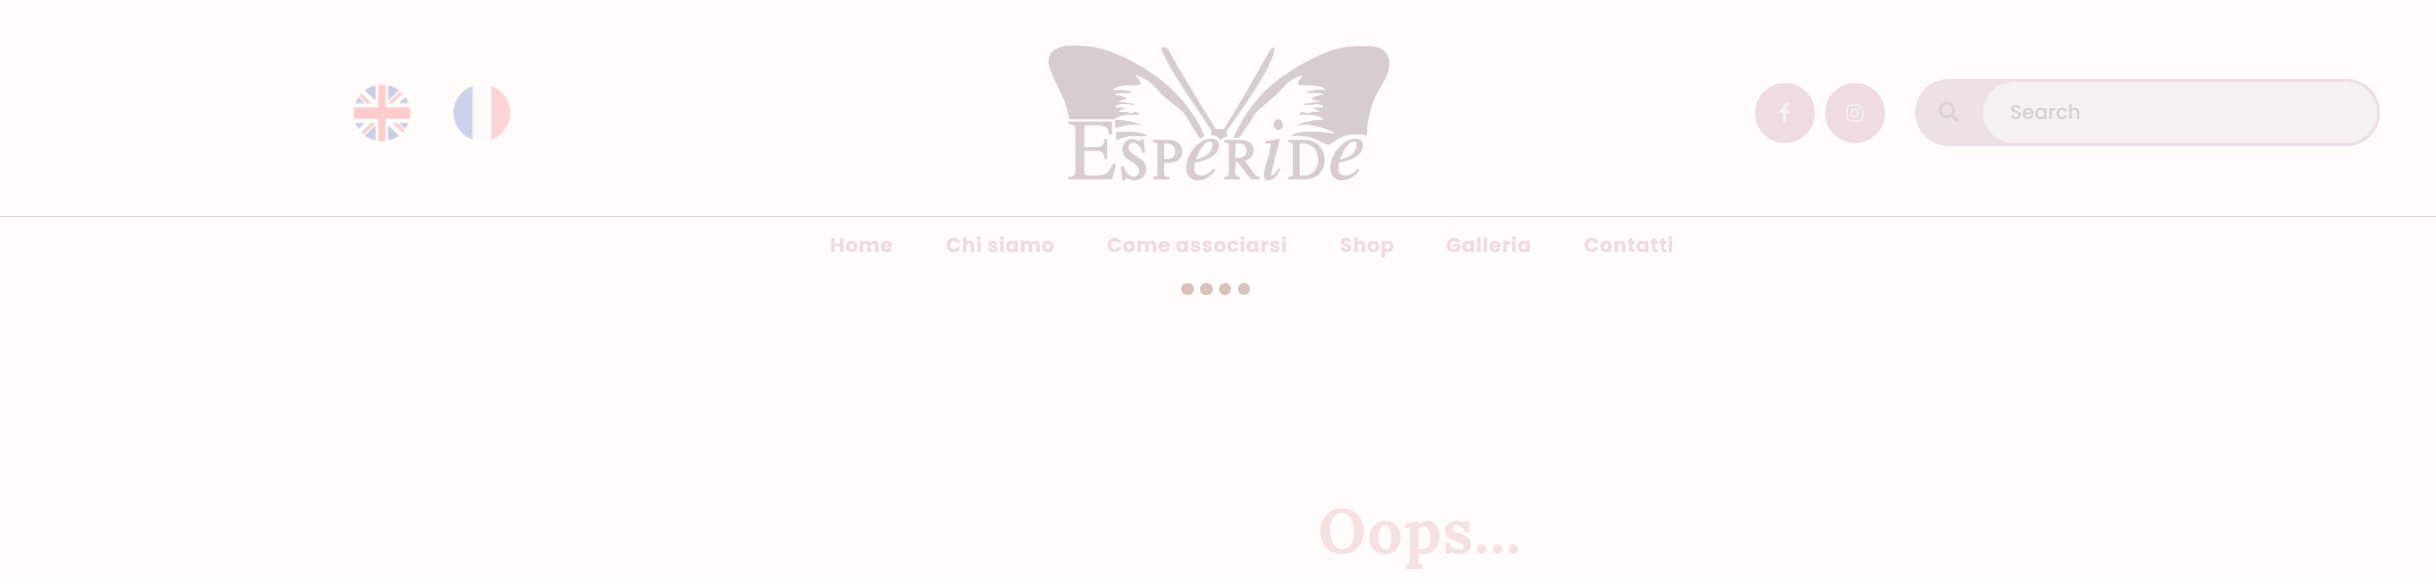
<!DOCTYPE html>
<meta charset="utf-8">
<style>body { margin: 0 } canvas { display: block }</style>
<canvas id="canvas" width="2436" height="577"></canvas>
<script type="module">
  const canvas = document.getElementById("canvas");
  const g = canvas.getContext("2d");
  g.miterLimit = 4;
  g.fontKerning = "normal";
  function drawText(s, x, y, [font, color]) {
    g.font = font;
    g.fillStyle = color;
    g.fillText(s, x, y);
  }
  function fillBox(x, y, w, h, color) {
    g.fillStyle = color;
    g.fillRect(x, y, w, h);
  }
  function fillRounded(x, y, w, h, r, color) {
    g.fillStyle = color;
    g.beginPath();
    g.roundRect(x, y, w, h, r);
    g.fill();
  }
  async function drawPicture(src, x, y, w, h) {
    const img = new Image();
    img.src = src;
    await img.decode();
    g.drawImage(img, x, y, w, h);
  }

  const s1 = ["500 20px Poppins", "#D1D3D3"];
  const s2 = ["bold 20px Poppins", "#EFDCDE"];
  const s3 = ["bold 62.5px Lora", "#F6E1E1"];

  fillBox(0, 0, 2436, 577, "#FFFCF9");
  fillBox(0, 216, 2436, 1, "#DBD4D9");
  await drawPicture("pic1.png", 352, 83, 60, 59);
  await drawPicture("pic2.png", 452, 84, 60, 58);
  await drawPicture("pic3.png", 1048, 45, 342, 145);
  g.fillStyle = "#EFDCDE";
  g.beginPath();
  g.arc(1785, 113, 30, 0, Math.PI * 2);
  g.fill();
  await drawPicture("pic4.png", 1779, 103, 11, 19);
  g.beginPath();
  g.arc(1855, 113, 30, 0, Math.PI * 2);
  g.fill();
  await drawPicture("pic5.png", 1846, 104, 18, 18);
  fillRounded(1915, 79, 465, 67, 33.5, "#EDE1E5");
  await drawPicture("pic6.png", 1938, 101, 21, 21);
  g.fillStyle = "#F5F1F0";
  g.beginPath();
  g.roundRect(1981.5, 80.5, 397, 64, 32);
  g.fill();
  g.strokeStyle = "#EDE1E5";
  g.lineWidth = 3;
  g.stroke();
  drawText("Search", 2010, 119, s1);
  g.letterSpacing = "0.6px";
  drawText("Home", 830, 252, s2);
  drawText("Chi siamo", 946, 252, s2);
  drawText("Come associarsi", 1107, 252, s2);
  drawText("Shop", 1340, 252, s2);
  drawText("Galleria", 1446, 252, s2);
  drawText("Contatti", 1584, 252, s2);
  g.letterSpacing = "1.25px";
  drawText("Oops...", 1318, 553, s3);
  fillRounded(1181, 283, 13, 12, 6, "#D9C2BD");
  fillRounded(1200, 283, 13, 12, 6, "#D9C2BD");
  g.beginPath();
  g.arc(1225, 289, 6, 0, Math.PI * 2);
  g.fill();
  g.beginPath();
  g.arc(1244, 289, 6, 0, Math.PI * 2);
  g.fill();
</script>
